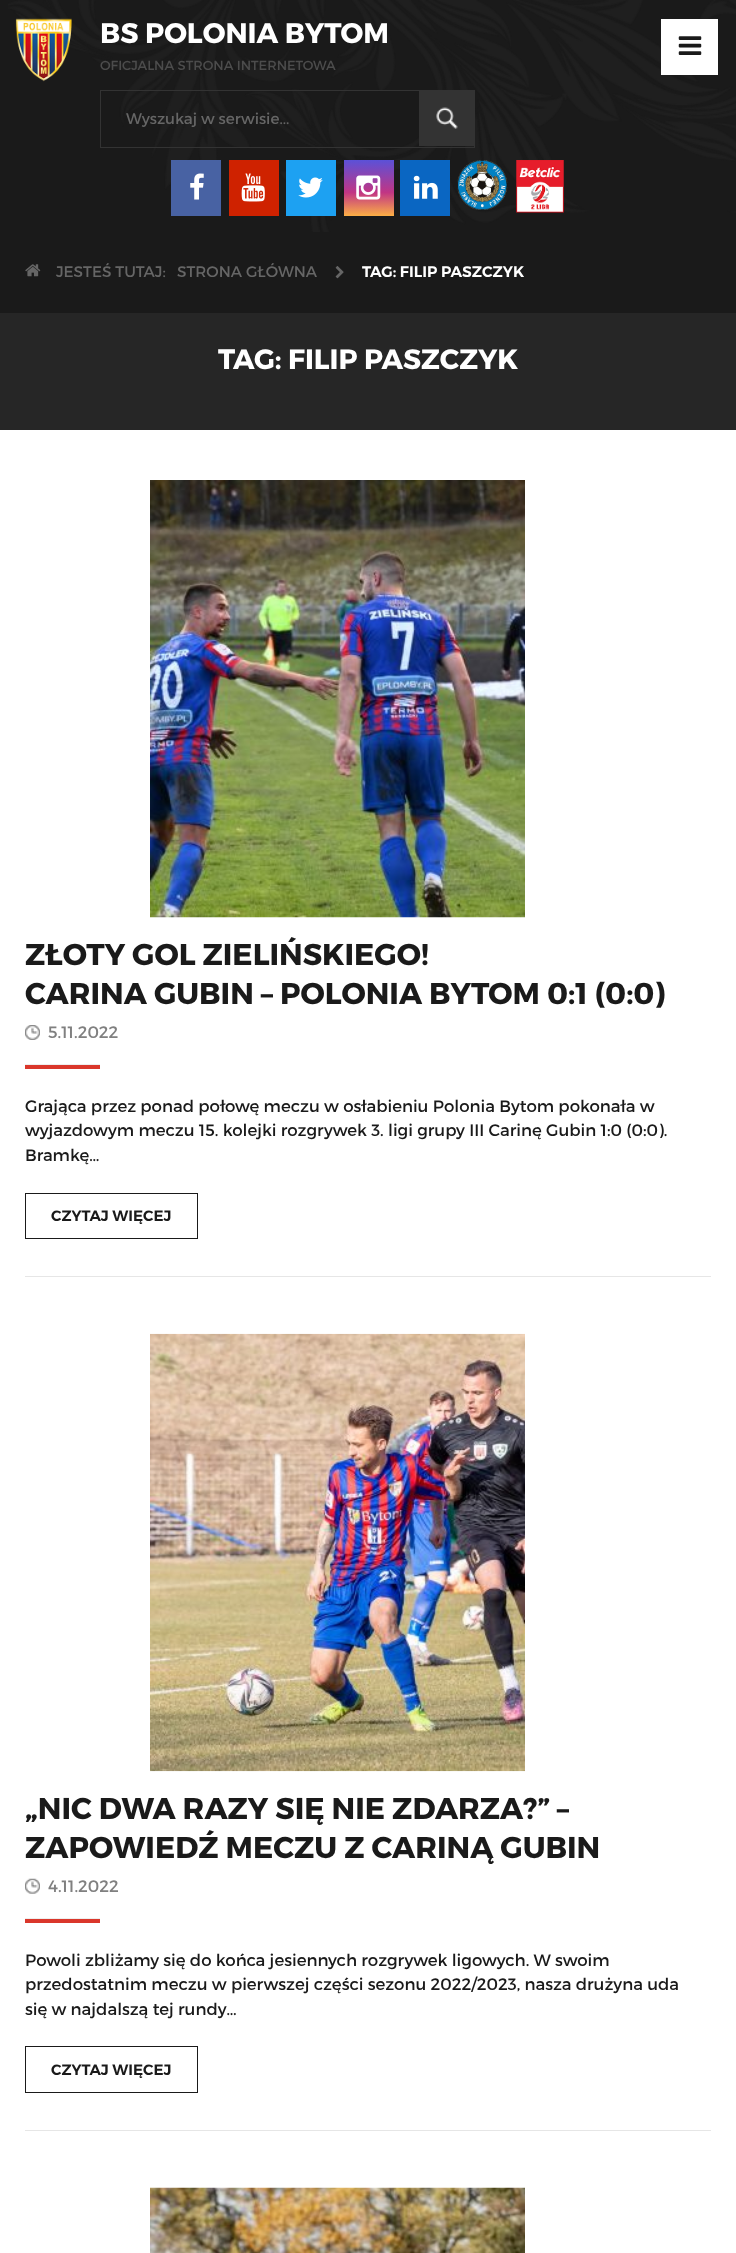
<!DOCTYPE html>
<meta charset="utf-8">
<style>body { margin: 0 } canvas { display: block }</style>
<canvas id="canvas" width="736" height="2253"></canvas>
<script type="module">
  const canvas = document.getElementById("canvas");
  const g = canvas.getContext("2d");
  g.miterLimit = 4;
  g.fontKerning = "normal";
  function drawText(s, x, y, [font, color]) {
    g.font = font;
    g.fillStyle = color;
    g.fillText(s, x, y);
  }
  function fillBox(x, y, w, h, color) {
    g.fillStyle = color;
    g.fillRect(x, y, w, h);
  }
  async function drawPicture(src, x, y, w, h) {
    const img = new Image();
    img.src = src;
    await img.decode();
    g.drawImage(img, x, y, w, h);
  }
  let gradient;

  const s1 = ["bold 28.25px Montserrat", "#FFFFFF"];
  const s2 = ["13.1px Montserrat", "#4C4C4C"];
  const s3 = ["15.25px Montserrat", "#666666"];
  const s4 = ["600 15.25px Montserrat", "#FFFFFF"];
  const s5 = ["bold 28px Montserrat", "#FFFFFF"];
  const s6 = ["bold 30.1px Montserrat", "#1A1A1A"];
  const s7 = ["16.6px Montserrat", "#808080"];
  const s8 = ["16.6px Montserrat", "#1A1A1A"];
  const s9 = ["600 15px Montserrat", "#1A1A1A"];

  fillBox(0, 0, 736, 2253, "#1A1A1A");
  await drawPicture("pic1.png", 8, 0, 728, 232);
  await drawPicture("pic2.png", 15, 18, 57, 64);
  drawText("BS POLONIA BYTOM", 100, 43, s1);
  drawText("OFICJALNA STRONA INTERNETOWA", 100, 70, s2);
  fillBox(661, 19, 57, 56, "#FFFFFF");
  await drawPicture("pic3.png", 678, 36, 24, 19);
  g.strokeStyle = "#333333";
  g.strokeRect(100.5, 90.5, 374, 57);
  drawText("Wyszukaj w serwisie...", 126, 124, s3);
  fillBox(419, 91, 55, 55, "#333333");
  await drawPicture("pic4.png", 436, 107, 22, 22);
  fillBox(171, 160, 50, 56, "#4862A3");
  await drawPicture("pic5.png", 190, 173, 14, 27);
  fillBox(229, 160, 50, 56, "#CF2200");
  await drawPicture("pic6.png", 241, 173, 24, 29);
  fillBox(286, 160, 50, 56, "#1DA1F2");
  await drawPicture("pic7.png", 298, 177, 25, 21);
  gradient = g.createLinearGradient(369, 160, 369, 216);
  gradient.addColorStop(0, "#5B51D8");
  gradient.addColorStop(0.58, "#C13584");
  gradient.addColorStop(1, "#FCAF45");
  g.fillStyle = gradient;
  g.fillRect(344, 160, 50, 56);
  await drawPicture("pic8.png", 356, 175, 25, 25);
  fillBox(400, 160, 50, 56, "#0A66C2");
  await drawPicture("pic9.png", 413, 175, 25, 24);
  await drawPicture("pic10.png", 457, 160, 51, 50);
  await drawPicture("pic11.png", 516, 160, 48, 53);
  await drawPicture("pic12.png", 25, 264, 16, 13);
  drawText("JESTEŚ TUTAJ:", 56, 277, s3);
  drawText("STRONA GŁÓWNA", 177, 277, s3);
  await drawPicture("pic13.png", 335, 266, 9, 13);
  drawText("TAG: FILIP PASZCZYK", 362, 277, s4);
  fillBox(0, 313, 736, 117, "#262626");
  drawText("TAG: FILIP PASZCZYK", 218, 369, s5);
  fillBox(0, 430, 736, 1823, "#FFFFFF");
  fillBox(25, 1276, 686, 1, "#E6E6E6");
  await drawPicture("pic14.png", 150, 480, 375, 438);
  drawText("ZŁOTY GOL ZIELIŃSKIEGO!", 25, 965, s6);
  drawText("CARINA GUBIN – POLONIA BYTOM 0:1 (0:0)", 25, 1004, s6);
  await drawPicture("pic15.png", 25, 1025, 15, 15);
  drawText("5.11.2022", 48, 1038, s7);
  fillBox(25, 1065, 75, 4, "#DA372B");
  fillBox(25, 1064, 75, 1, "#EEEEEE");
  drawText("Grająca przez ponad połowę meczu w osłabieniu Polonia Bytom pokonała w", 25, 1112, s8);
  drawText("wyjazdowym meczu 15. kolejki rozgrywek 3. ligi grupy III Carinę Gubin 1:0 (0:0).", 25, 1136, s8);
  drawText("Bramkę…", 25, 1161, s8);
  g.strokeStyle = "#1A1A1A";
  g.strokeRect(25.5, 1193.5, 172, 45);
  drawText("CZYTAJ WIĘCEJ", 51, 1221, s9);
  fillBox(25, 2130, 686, 1, "#E6E6E6");
  await drawPicture("pic16.png", 150, 1333, 375, 439);
  drawText("„NIC DWA RAZY SIĘ NIE ZDARZA?” –", 25, 1819, s6);
  drawText("ZAPOWIEDŹ MECZU Z CARINĄ GUBIN", 25, 1858, s6);
  await drawPicture("pic17.png", 25, 1878, 15, 16);
  drawText("4.11.2022", 48, 1892, s7);
  fillBox(25, 1919, 75, 4, "#DA372B");
  fillBox(25, 1918, 75, 1, "#EEEEEE");
  drawText("Powoli zbliżamy się do końca jesiennych rozgrywek ligowych. W swoim", 25, 1966, s8);
  drawText("przedostatnim meczu w pierwszej części sezonu 2022/2023, nasza drużyna uda", 25, 1990, s8);
  drawText("się w najdalszą tej rundy…", 25, 2015, s8);
  g.strokeRect(25.5, 2046.5, 172, 46);
  drawText("CZYTAJ WIĘCEJ", 51, 2075, s9);
  await drawPicture("pic18.png", 150, 2187, 375, 66);
</script>
